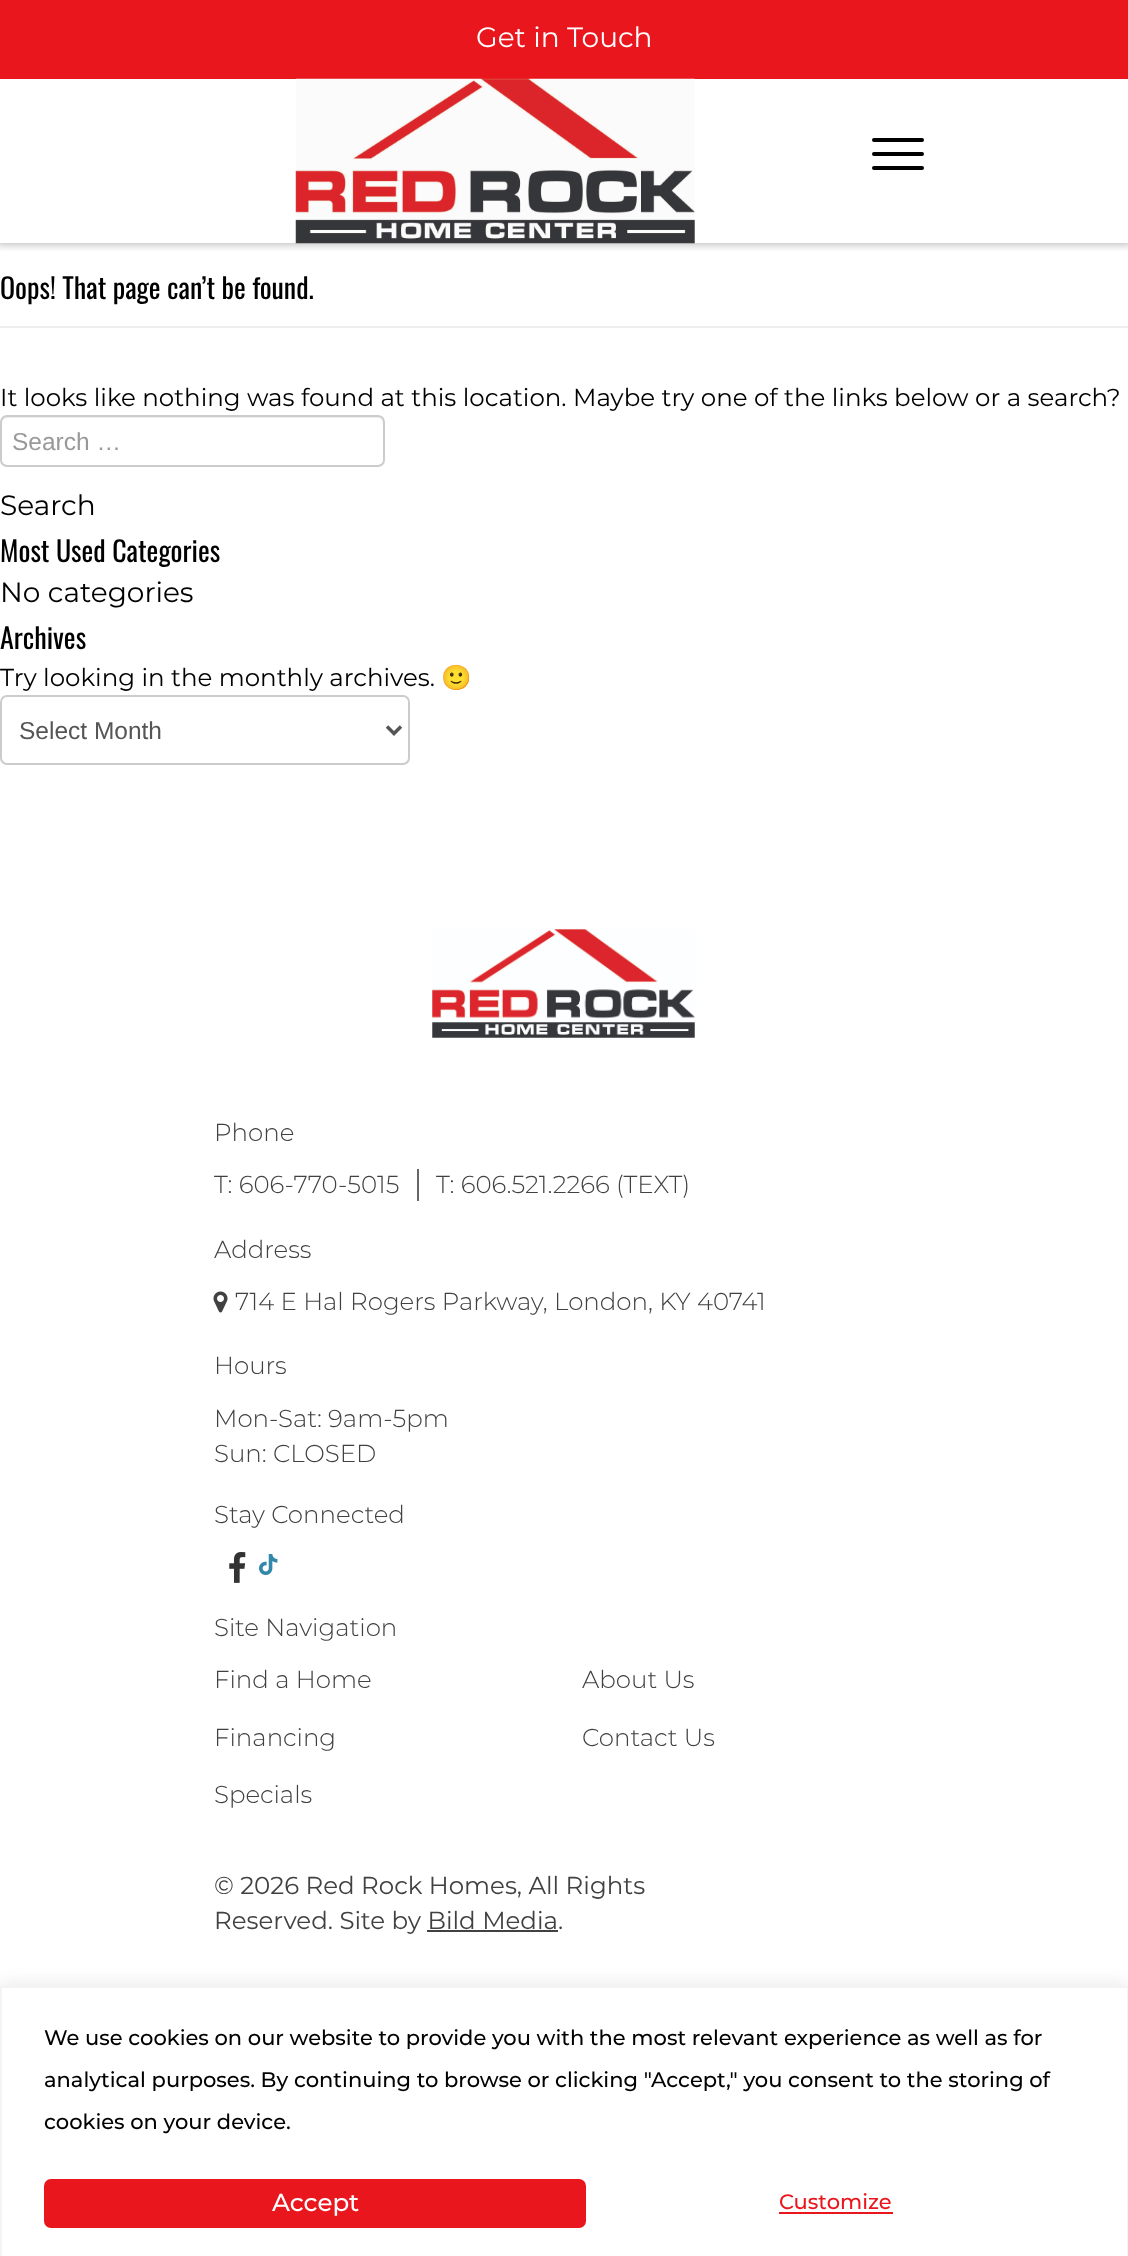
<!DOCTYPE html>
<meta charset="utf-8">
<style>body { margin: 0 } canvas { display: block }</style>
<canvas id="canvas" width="1128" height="2256"></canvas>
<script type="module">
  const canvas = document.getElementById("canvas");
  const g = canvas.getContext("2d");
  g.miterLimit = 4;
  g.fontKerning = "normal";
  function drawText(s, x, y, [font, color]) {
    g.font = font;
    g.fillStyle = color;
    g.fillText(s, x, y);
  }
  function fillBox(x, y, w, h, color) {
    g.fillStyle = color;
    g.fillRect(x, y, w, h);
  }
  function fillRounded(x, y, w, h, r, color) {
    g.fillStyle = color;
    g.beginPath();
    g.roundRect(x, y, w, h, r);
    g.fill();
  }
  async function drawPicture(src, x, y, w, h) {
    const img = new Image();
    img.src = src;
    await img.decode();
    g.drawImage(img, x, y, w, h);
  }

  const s1 = ["28px Montserrat", "#FFFFFF"];
  const s2 = ["28px Oswald", "#000000"];
  const s3 = ["24.5px Montserrat", "#000000"];
  const s4 = ["24.5px Liberation Sans", "#999999"];
  const s5 = ["28px Montserrat", "#000000"];
  const s6 = ["24.5px Noto Color Emoji", "#000000"];
  const s7 = ["24.5px Liberation Sans", "#555555"];
  const s8 = ["300 24.5px Montserrat", "#414141"];
  const s9 = ["24.5px Montserrat", "#414141"];
  const s10 = ["500 21px Montserrat", "#000000"];
  const s11 = ["500 24.5px Montserrat", "#FFFFFF"];
  const s12 = ["500 21px Montserrat", "#E9161D"];

  fillBox(0, 0, 1128, 2256, "#FFFFFF");
  g.save();
  g.beginPath();
  g.rect(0, 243, 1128, 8);
  g.clip();
  g.fillStyle = "rgba(0, 0, 0, 0.25)";
  g.filter = "blur(4.5px)";
  g.beginPath();
  g.rect(-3, -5, 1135, 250);
  g.fill();
  g.filter = "none";
  g.restore();
  fillBox(0, 0, 1128, 79, "#E9161D");
  drawText("Get in Touch", 476, 47, s1);
  await drawPicture("pic1.png", 295, 78, 400, 166);
  fillRounded(872, 152, 52, 4, 2, "#000000");
  fillRounded(872, 138, 52, 4, 2, "#000000");
  fillRounded(872, 166, 52, 4, 2, "#000000");
  fillBox(0, 326, 1128, 2, "#EEEEEE");
  drawText("Oops! That page can’t be found.", 0, 299, s2);
  drawText("It looks like nothing was found at this location. Maybe try one of the links below or a search?", 0, 406, s3);
  g.fillStyle = "#ECECEC";
  g.beginPath();
  g.moveTo(7, 418);
  g.lineTo(378, 418);
  g.bezierCurveTo(381, 418, 383, 421, 383, 424);
  g.lineTo(383, 422);
  g.bezierCurveTo(383, 419, 381, 417, 378, 417);
  g.lineTo(7, 417);
  g.bezierCurveTo(4, 417, 2, 419, 2, 422);
  g.lineTo(2, 424);
  g.bezierCurveTo(2, 421, 4, 418, 7, 418);
  g.closePath();
  g.fill();
  g.beginPath();
  g.roundRect(1, 416, 383, 50, 6);
  g.strokeStyle = "#CCCCCC";
  g.lineWidth = 2;
  g.stroke();
  drawText("Search …", 12, 450, s4);
  drawText("Search", 0, 515, s5);
  drawText("Most Used Categories", 0, 562, s2);
  drawText("No categories", 0, 602, s5);
  drawText("Archives", 0, 649, s2);
  drawText("Try looking in the monthly archives.", 0, 686, s3);
  drawText("🙂", 441, 686, s6);
  g.beginPath();
  g.roundRect(1, 696, 408, 68, 6);
  g.stroke();
  g.beginPath();
  g.moveTo(387, 726.5);
  g.lineTo(394, 733.5);
  g.lineTo(401, 726.5);
  g.strokeStyle = "#555555";
  g.lineWidth = 3.5;
  g.stroke();
  drawText("Select Month", 19, 739, s7);
  await drawPicture("pic2.png", 432, 929, 263, 109);
  drawText("Phone", 214, 1141, s8);
  drawText("T: 606-770-5015", 214, 1193, s8);
  drawText("T: 606.521.2266 (TEXT)", 436, 1193, s8);
  fillBox(417, 1169, 2, 32, "#666666");
  drawText("Address", 214, 1258, s8);
  await drawPicture("pic3.png", 213, 1291, 15, 22);
  drawText("714 E Hal Rogers Parkway, London, KY 40741", 235, 1310, s8);
  drawText("Hours", 214, 1374, s8);
  drawText("Mon-Sat: 9am-5pm", 214, 1427, s8);
  drawText("Sun: CLOSED", 214, 1462, s8);
  drawText("Stay Connected", 214, 1523, s8);
  await drawPicture("pic4.png", 229, 1552, 17, 31);
  await drawPicture("pic5.png", 259, 1554, 19, 21);
  drawText("Site Navigation", 214, 1636, s8);
  drawText("Find a Home", 214, 1688, s8);
  drawText("About Us", 582, 1688, s8);
  drawText("Financing", 214, 1746, s8);
  drawText("Contact Us", 582, 1746, s8);
  drawText("Specials", 214, 1803, s8);
  drawText("© 2026 Red Rock Homes, All Rights", 214, 1894, s9);
  drawText("Reserved. Site by Bild Media.", 214, 1929, s9);
  fillBox(427, 1930, 131, 2, "#414141");
  g.fillStyle = "rgba(172, 171, 171, 0.3)";
  g.filter = "blur(9px)";
  g.beginPath();
  g.rect(0, 1985, 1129, 271);
  g.fill();
  g.filter = "none";
  g.fillStyle = "#FFFFFF";
  g.beginPath();
  g.rect(1, 1987, 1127, 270);
  g.fill();
  g.strokeStyle = "#F4F4F4";
  g.lineWidth = 2;
  g.stroke();
  drawText("We use cookies on our website to provide you with the most relevant experience as well as for", 44, 2045, s10);
  drawText("analytical purposes. By continuing to browse or clicking \"Accept,\" you consent to the storing of", 44, 2087, s10);
  drawText("cookies on your device.", 44, 2129, s10);
  g.fillStyle = "#E9161D";
  g.beginPath();
  g.roundRect(46, 2181, 538, 45, 5);
  g.fill();
  g.strokeStyle = "#E9161D";
  g.lineWidth = 4;
  g.stroke();
  drawText("Accept", 272, 2211, s11);
  drawText("Customize", 779, 2209, s12);
  fillBox(779, 2212, 114, 2, "#E9161D");
</script>
